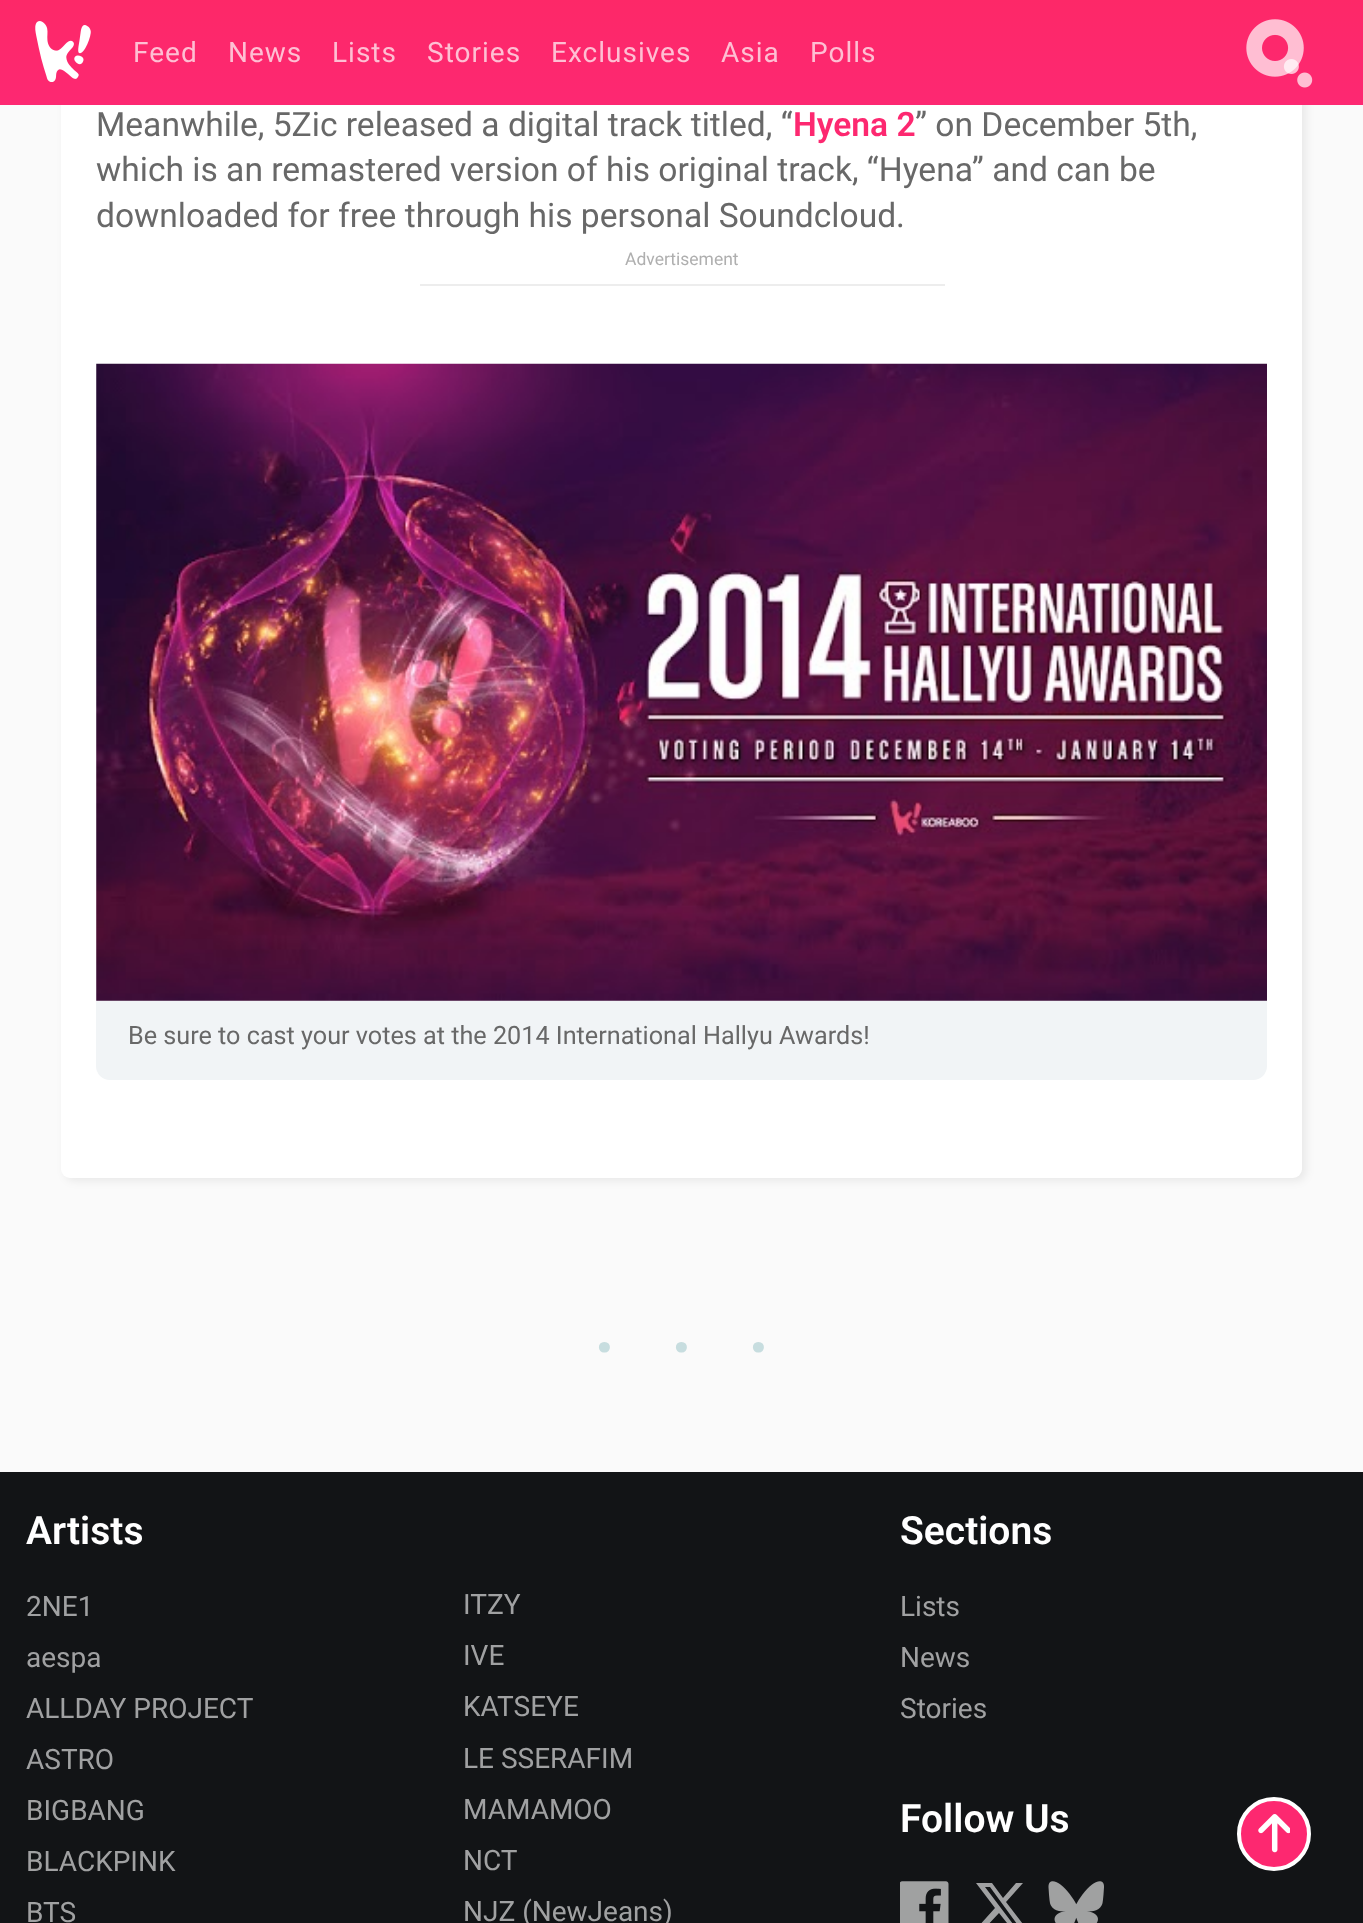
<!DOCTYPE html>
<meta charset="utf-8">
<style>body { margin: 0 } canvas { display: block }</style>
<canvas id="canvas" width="1363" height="1923"></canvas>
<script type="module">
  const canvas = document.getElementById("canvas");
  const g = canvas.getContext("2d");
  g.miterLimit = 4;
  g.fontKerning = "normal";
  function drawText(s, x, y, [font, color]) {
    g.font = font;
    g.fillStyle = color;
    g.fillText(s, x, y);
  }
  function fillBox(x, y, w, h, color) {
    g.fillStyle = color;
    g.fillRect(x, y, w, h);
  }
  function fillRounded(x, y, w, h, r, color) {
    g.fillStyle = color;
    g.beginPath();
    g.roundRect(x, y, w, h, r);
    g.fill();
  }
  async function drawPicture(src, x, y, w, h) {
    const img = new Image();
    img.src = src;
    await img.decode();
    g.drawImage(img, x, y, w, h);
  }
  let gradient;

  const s1 = ["28px Roboto", "#FEBFD3"];
  const s2 = ["33.6px Roboto", "#686868"];
  const s3 = ["600 33.6px Roboto", "#FD2870"];
  const s4 = ["17.5px Roboto", "#AFAFAF"];
  const s5 = ["25.2px Roboto", "#686868"];
  const s6 = ["98px Roboto", "#C7DDDF"];
  const s7 = ["600 39px Roboto", "#FFFFFF"];
  const s8 = ["28px Roboto", "#A0A1A2"];

  fillBox(0, 0, 1363, 1923, "#FAFAFA");
  g.fillStyle = "rgba(0, 0, 0, 0.07)";
  g.filter = "blur(4.5px)";
  g.beginPath();
  g.roundRect(65, -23, 1241, 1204, 9);
  g.fill();
  g.filter = "none";
  fillRounded(61, -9, 1241, 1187, 9, "#FFFFFF");
  gradient = g.createLinearGradient(682, 0, 682, 105);
  gradient.addColorStop(0, "#FD2868");
  gradient.addColorStop(1, "#FD2872");
  g.fillStyle = gradient;
  g.fillRect(0, 0, 1363, 105);
  await drawPicture("pic1.png", 35, 21, 56, 61);
  g.letterSpacing = "1px";
  drawText("Feed", 133, 62, s1);
  drawText("News", 228, 62, s1);
  drawText("Lists", 332, 62, s1);
  drawText("Stories", 427, 62, s1);
  drawText("Exclusives", 551, 62, s1);
  drawText("Asia", 721, 62, s1);
  drawText("Polls", 810, 62, s1);
  await drawPicture("pic2.png", 1246, 19, 67, 69);
  g.letterSpacing = "0px";
  drawText("Meanwhile, 5Zic released a digital track titled, “", 96, 136, s2);
  drawText("Hyena 2", 793, 136, s3);
  drawText("” on December 5th,", 915, 136, s2);
  drawText("which is an remastered version of his original track, “Hyena” and can be", 96, 181, s2);
  drawText("downloaded for free through his personal Soundcloud.", 96, 227, s2);
  fillBox(420, 284, 525, 2, "#EDEDED");
  drawText("Advertisement", 625, 265, s4);
  fillRounded(96, 364, 1171, 716, 14, "#F1F4F6");
  await drawPicture("pic3.png", 96, 363, 1171, 638);
  drawText("Be sure to cast your votes at the 2014 International Hallyu Awards!", 128, 1044, s5);
  drawText(".", 592, 1352, s6);
  drawText(".", 669, 1352, s6);
  drawText(".", 746, 1352, s6);
  fillBox(0, 1472, 1363, 451, "#121416");
  drawText("Artists", 26, 1544, s7);
  drawText("2NE1", 26, 1616, s8);
  drawText("aespa", 26, 1667, s8);
  drawText("ALLDAY PROJECT", 26, 1718, s8);
  drawText("ASTRO", 26, 1769, s8);
  drawText("BIGBANG", 26, 1820, s8);
  drawText("BLACKPINK", 26, 1871, s8);
  drawText("BTS", 26, 1922, s8);
  drawText("ITZY", 463, 1614, s8);
  drawText("IVE", 463, 1665, s8);
  drawText("KATSEYE", 463, 1716, s8);
  drawText("LE SSERAFIM", 463, 1768, s8);
  drawText("MAMAMOO", 463, 1819, s8);
  drawText("NCT", 463, 1870, s8);
  drawText("NJZ (NewJeans)", 463, 1921, s8);
  drawText("Sections", 900, 1544, s7);
  drawText("Lists", 900, 1616, s8);
  drawText("News", 900, 1667, s8);
  drawText("Stories", 900, 1718, s8);
  drawText("Follow Us", 900, 1832, s7);
  await drawPicture("pic4.png", 900, 1881, 49, 42);
  g.fillStyle = "#A0A1A2";
  g.beginPath();
  g.moveTo(1016, 1883);
  g.lineTo(1023, 1883);
  g.lineTo(1006, 1902);
  g.lineTo(1026, 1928);
  g.lineTo(1011, 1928);
  g.lineTo(999, 1913);
  g.lineTo(985, 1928);
  g.lineTo(977, 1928);
  g.lineTo(995, 1908);
  g.lineTo(976, 1883);
  g.lineTo(992, 1883);
  g.lineTo(1003, 1898);
  g.closePath();
  g.moveTo(1013, 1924);
  g.lineTo(1017, 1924);
  g.lineTo(990, 1887);
  g.lineTo(985, 1887);
  g.closePath();
  g.fill();
  await drawPicture("pic5.png", 1048, 1881, 56, 42);
  g.fillStyle = "#FD2870";
  g.beginPath();
  g.arc(1274, 1834, 35, 0, Math.PI * 2);
  g.fill();
  g.strokeStyle = "#FFFFFF";
  g.lineWidth = 4;
  g.stroke();
  await drawPicture("pic6.png", 1258, 1814, 32, 39);
</script>
